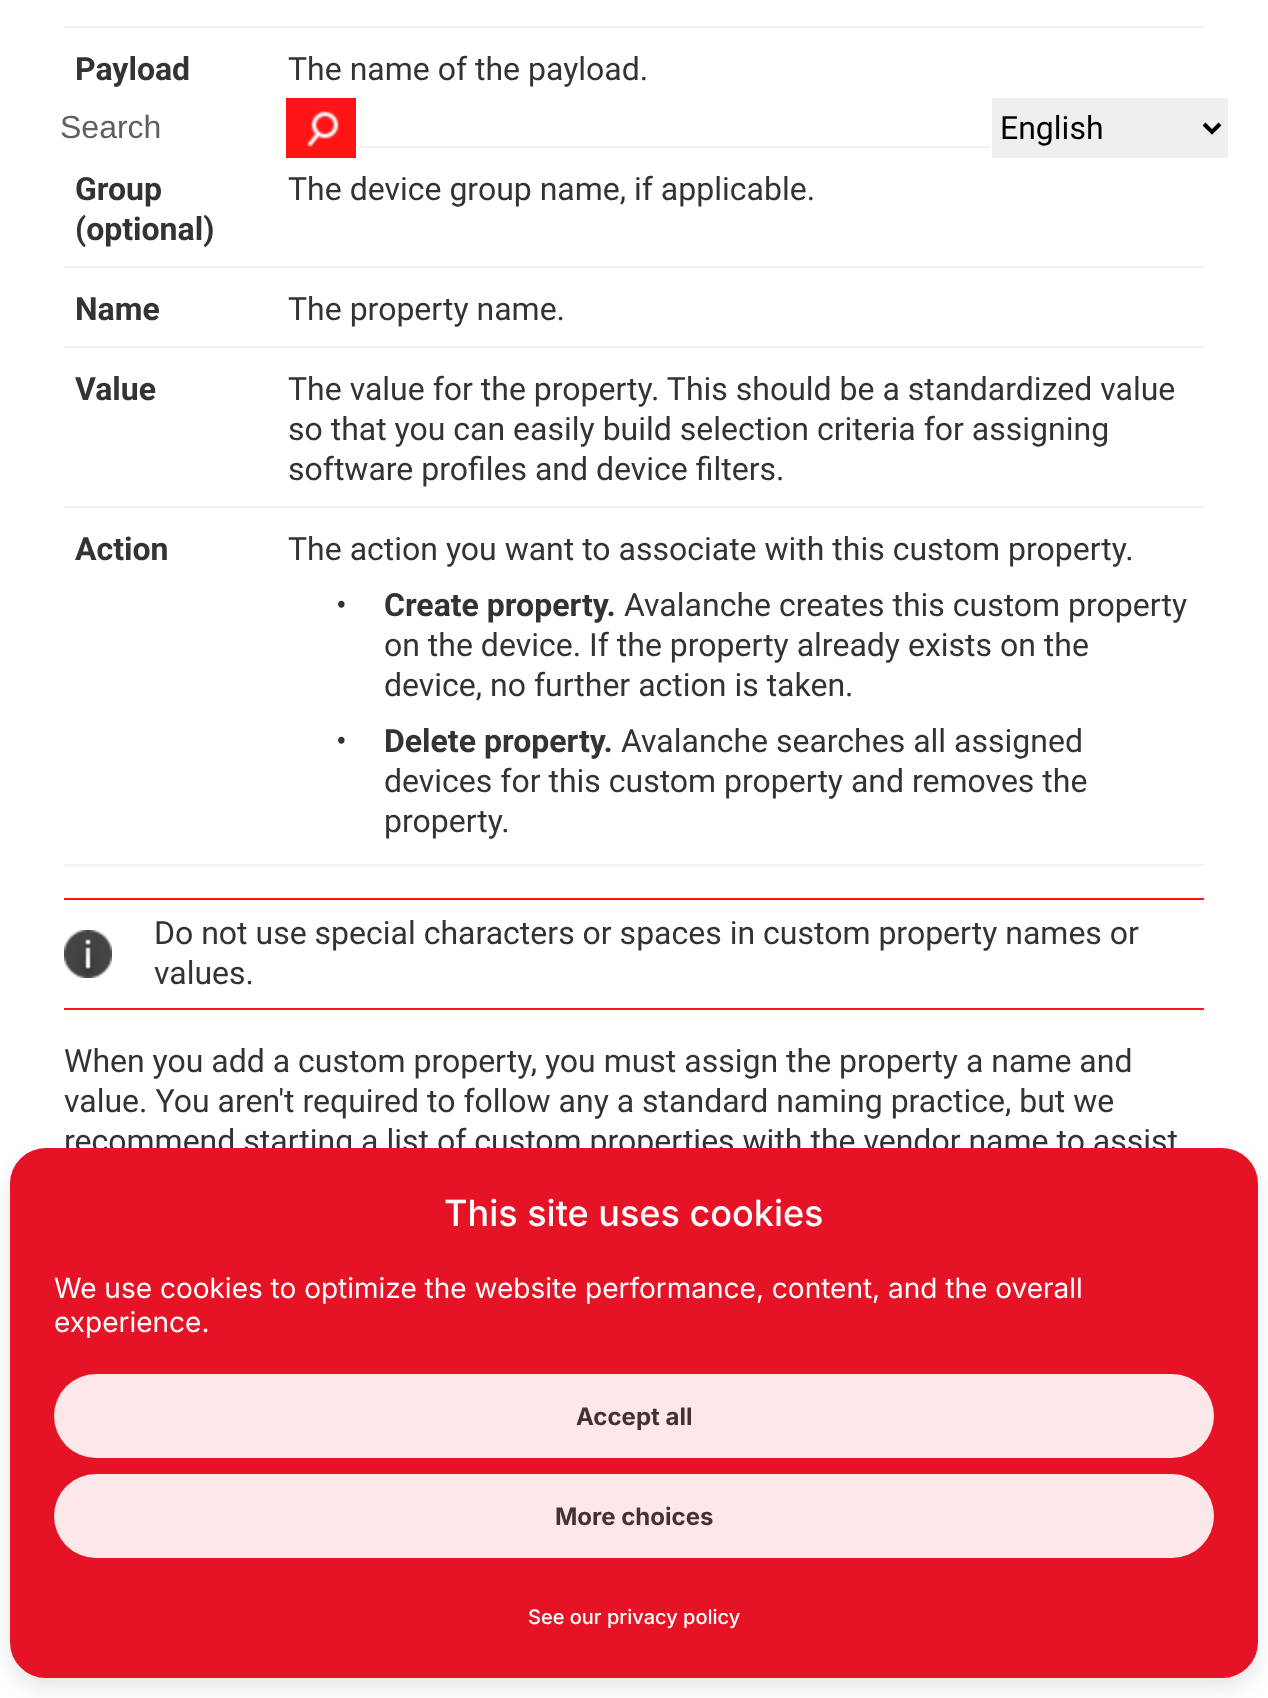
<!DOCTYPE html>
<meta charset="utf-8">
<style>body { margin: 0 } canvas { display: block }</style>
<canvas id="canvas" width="1268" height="1698"></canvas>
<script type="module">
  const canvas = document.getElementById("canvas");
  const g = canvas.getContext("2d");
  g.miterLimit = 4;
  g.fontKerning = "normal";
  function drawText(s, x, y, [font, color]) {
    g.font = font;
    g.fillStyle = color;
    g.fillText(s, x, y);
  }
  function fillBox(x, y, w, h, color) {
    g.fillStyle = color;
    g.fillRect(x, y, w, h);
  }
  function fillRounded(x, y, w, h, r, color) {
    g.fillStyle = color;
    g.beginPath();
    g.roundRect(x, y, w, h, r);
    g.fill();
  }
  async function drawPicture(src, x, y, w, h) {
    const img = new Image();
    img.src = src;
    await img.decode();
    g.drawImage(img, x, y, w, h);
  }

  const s1 = ["bold 32px Roboto", "#333333"];
  const s2 = ["32px Roboto", "#333333"];
  const s3 = ["32px Liberation Sans", "#5F5F5F"];
  const s4 = ["32px Roboto", "#000000"];
  const s5 = ["500 36px Inter", "#FFFFFF"];
  const s6 = ["28px Inter", "#FFFFFF"];
  const s7 = ["bold 24px Inter", "#453032"];
  const s8 = ["500 20px Inter", "#FFFFFF"];

  fillBox(0, 0, 1268, 1698, "#FFFFFF");
  fillBox(64, 26, 1140, 2, "#F2F2F2");
  fillBox(64, 864, 1140, 2, "#F2F2F2");
  drawText("Payload", 75, 80, s1);
  fillBox(358, 146, 632, 2, "#F2F2F2");
  drawText("The name of the payload.", 288, 80, s2);
  fillBox(64, 266, 1140, 2, "#F2F2F2");
  drawText("Group", 75, 200, s1);
  drawText("(optional)", 75, 240, s1);
  drawText("The device group name, if applicable.", 288, 200, s2);
  fillBox(64, 346, 1140, 2, "#F2F2F2");
  drawText("Name", 75, 320, s1);
  drawText("The property name.", 288, 320, s2);
  fillBox(64, 506, 1140, 2, "#F2F2F2");
  drawText("Value", 75, 400, s1);
  drawText("The value for the property. This should be a standardized value", 288, 400, s2);
  drawText("so that you can easily build selection criteria for assigning", 288, 440, s2);
  drawText("software profiles and device filters.", 288, 480, s2);
  drawText("Action", 75, 560, s1);
  drawText("The action you want to associate with this custom property.", 288, 560, s2);
  drawText("•", 336, 616, s2);
  drawText("Create property.", 384, 616, s1);
  drawText("Avalanche creates this custom property", 624, 616, s2);
  drawText("on the device. If the property already exists on the", 384, 656, s2);
  drawText("device, no further action is taken.", 384, 696, s2);
  drawText("•", 336, 752, s2);
  drawText("Delete property.", 384, 752, s1);
  drawText("Avalanche searches all assigned", 621, 752, s2);
  drawText("devices for this custom property and removes the", 384, 792, s2);
  drawText("property.", 384, 832, s2);
  await drawPicture("pic1.png", 64, 930, 48, 48);
  fillBox(64, 898, 1140, 2, "#FF1515");
  fillBox(64, 1008, 1140, 2, "#FF1515");
  drawText("Do not use special characters or spaces in custom property names or", 154, 944, s2);
  drawText("values.", 154, 984, s2);
  drawText("When you add a custom property, you must assign the property a name and", 64, 1072, s2);
  drawText("value. You aren't required to follow any a standard naming practice, but we", 64, 1112, s2);
  drawText("recommend starting a list of custom properties with the vendor name to assist", 64, 1152, s2);
  drawText("Search", 60, 138, s3);
  fillBox(286, 98, 70, 60, "#FF1515");
  await drawPicture("pic2.png", 307, 111, 32, 36);
  fillBox(992, 98, 236, 60, "#EFEFEF");
  g.beginPath();
  g.moveTo(1204, 124);
  g.lineTo(1212, 132);
  g.lineTo(1220, 124);
  g.strokeStyle = "#000000";
  g.lineWidth = 4;
  g.stroke();
  drawText("English", 1000, 139, s4);
  g.fillStyle = "rgba(0, 0, 0, 0.1)";
  g.filter = "blur(10px)";
  g.beginPath();
  g.roundRect(10, 1158, 1248, 530, 36);
  g.fill();
  g.filter = "none";
  g.fillStyle = "#E61226";
  g.beginPath();
  g.roundRect(11, 1149, 1246, 528, 35);
  g.fill();
  g.strokeStyle = "#E61226";
  g.lineWidth = 2;
  g.stroke();
  drawText("This site uses cookies", 444, 1226, s5);
  drawText("We use cookies to optimize the website performance, content, and the overall", 54, 1298, s6);
  drawText("experience.", 54, 1332, s6);
  fillRounded(54, 1374, 1160, 84, 42, "#FDE7E9");
  drawText("Accept all", 576, 1425, s7);
  fillRounded(54, 1474, 1160, 84, 42, "#FDE7E9");
  drawText("More choices", 555, 1525, s7);
  drawText("See our privacy policy", 528, 1624, s8);
</script>
